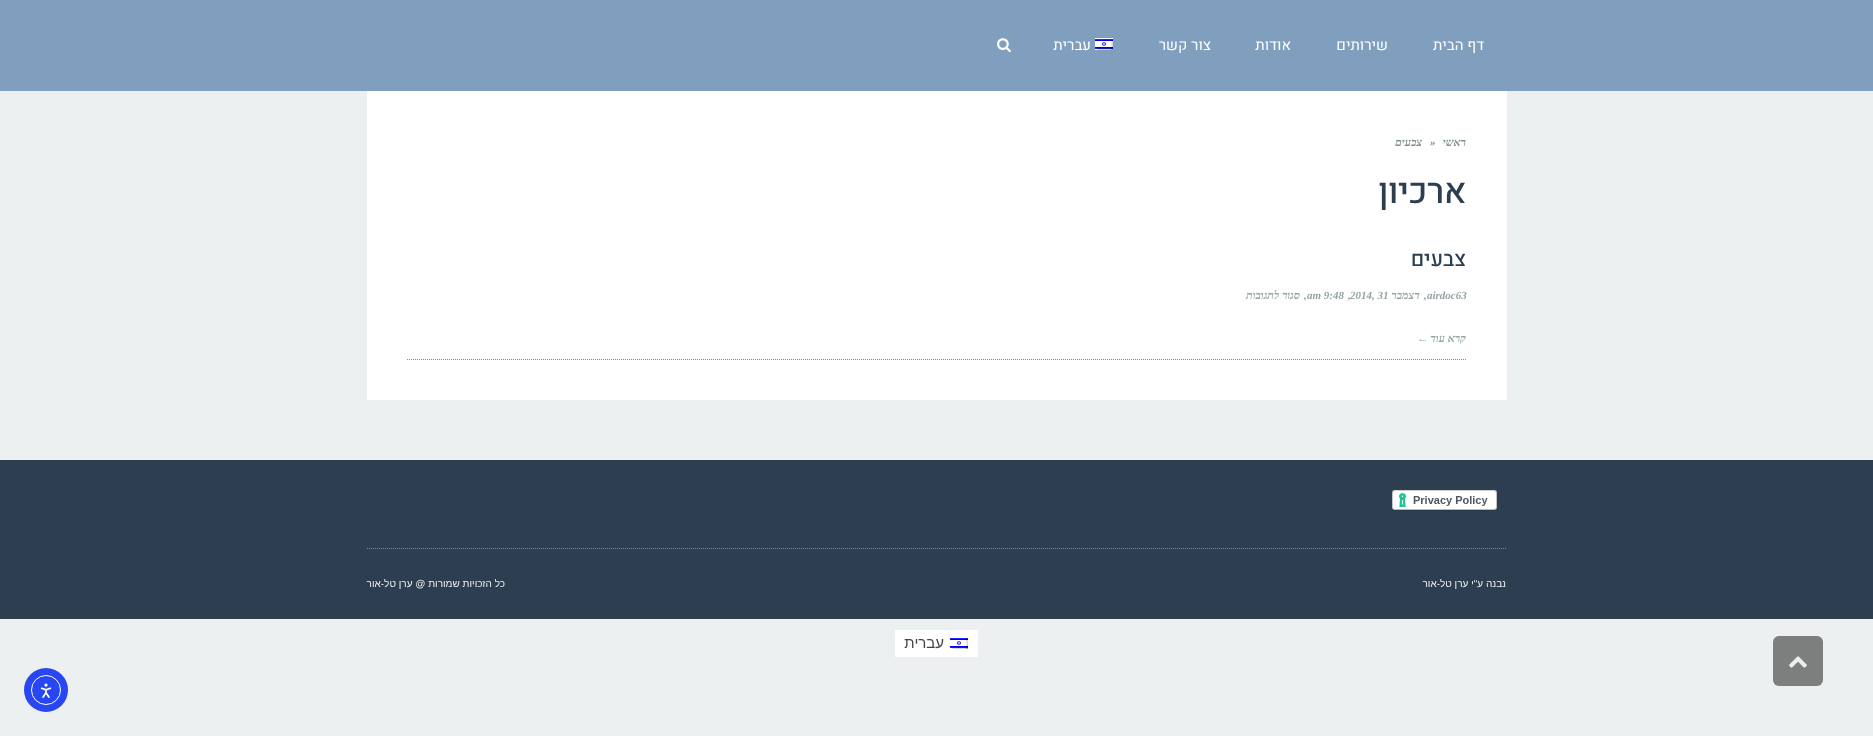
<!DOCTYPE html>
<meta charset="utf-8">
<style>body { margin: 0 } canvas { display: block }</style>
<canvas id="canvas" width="1873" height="736"></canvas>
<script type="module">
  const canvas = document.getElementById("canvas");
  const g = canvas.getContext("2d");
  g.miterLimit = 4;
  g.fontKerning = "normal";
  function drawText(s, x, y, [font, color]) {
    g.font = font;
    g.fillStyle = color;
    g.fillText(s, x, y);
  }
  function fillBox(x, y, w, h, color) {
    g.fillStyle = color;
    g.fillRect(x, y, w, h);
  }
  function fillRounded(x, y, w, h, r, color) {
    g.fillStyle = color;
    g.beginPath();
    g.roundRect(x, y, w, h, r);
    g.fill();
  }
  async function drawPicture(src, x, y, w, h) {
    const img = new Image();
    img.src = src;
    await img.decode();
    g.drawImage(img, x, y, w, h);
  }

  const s1 = ["15px Heebo", "#FFFFFF"];
  const s2 = ["italic bold 11px Tinos", "#7F8C8D"];
  const s3 = ["500 35px Heebo", "#2C3E50"];
  const s4 = ["500 21px Heebo", "#2C3E50"];
  const s5 = ["italic bold 11px Tinos", "#95A5A6"];
  const s6 = ["italic bold 11px Liberation Sans", "#95A5A6"];
  const s7 = ["10px Liberation Sans", "#ECF0F1"];
  const s8 = ["15px Liberation Sans", "#444444"];

  fillBox(0, 0, 1873, 736, "#ECF0F1");
  fillBox(0, 0, 1873, 91, "#809FBF");
  g.direction = "rtl";
  drawText("דף הבית", 1484, 50, s1);
  drawText("שירותים", 1388, 50, s1);
  drawText("אודות", 1291, 50, s1);
  drawText("צור קשר", 1211, 50, s1);
  await drawPicture("pic1.png", 1095, 38, 18, 12);
  drawText("עברית", 1091, 50, s1);
  await drawPicture("pic2.png", 997, 38, 14, 15);
  fillBox(367, 91, 1140, 309, "#FFFFFF");
  drawText("ראשי", 1466, 146, s2);
  g.direction = "ltr";
  drawText("»", 1430, 146, s2);
  g.direction = "rtl";
  drawText("צבעים", 1422, 146, s2);
  g.letterSpacing = "-0.5px";
  drawText("ארכיון", 1466, 203, s3);
  g.beginPath();
  g.moveTo(407, 359.5);
  g.lineTo(1467, 359.5);
  g.strokeStyle = "#7F8C8D";
  g.setLineDash([1, 1]);
  g.stroke();
  g.letterSpacing = "0px";
  drawText("צבעים", 1466, 266, s4);
  g.direction = "ltr";
  drawText("airdoc63", 1427, 299, s5);
  drawText(",", 1424, 299, s5);
  g.direction = "rtl";
  drawText("דצמבר", 1420, 299, s5);
  g.direction = "ltr";
  drawText("2014, 31", 1350, 299, s5);
  drawText(",", 1348, 299, s5);
  drawText("am 9:48", 1307, 299, s5);
  drawText(",", 1304, 299, s5);
  g.direction = "rtl";
  drawText("סגור לתגובות", 1300, 299, s5);
  drawText("קרא עוד", 1466, 342, s5);
  drawText("←", 1428, 342, s6);
  fillBox(0, 460, 1873, 159, "#2C3E50");
  await drawPicture("pic3.png", 1392, 490, 105, 21);
  g.beginPath();
  g.moveTo(367, 548.5);
  g.lineTo(1507, 548.5);
  g.stroke();
  drawText("נבנה ע\"י ערן טל-אור", 1506, 587, s7);
  drawText("כל הזכויות שמורות @ ערן טל-אור", 505, 587, s7);
  fillRounded(1773, 636, 50, 50, 6, "#7D7F7F");
  await drawPicture("pic4.png", 1789, 656, 18, 12);
  fillBox(895, 630, 83, 27, "#FFFFFF");
  await drawPicture("pic5.png", 950, 638, 18, 11);
  drawText("עברית", 944, 648, s8);
  g.fillStyle = "#2847F3";
  g.beginPath();
  g.arc(46, 690, 22, 0, Math.PI * 2);
  g.fill();
  g.beginPath();
  g.arc(46, 690, 14.5, 0, Math.PI * 2);
  g.strokeStyle = "#FFFFFF";
  g.setLineDash([]);
  g.stroke();
  await drawPicture("pic6.png", 40, 683, 12, 15);
</script>
